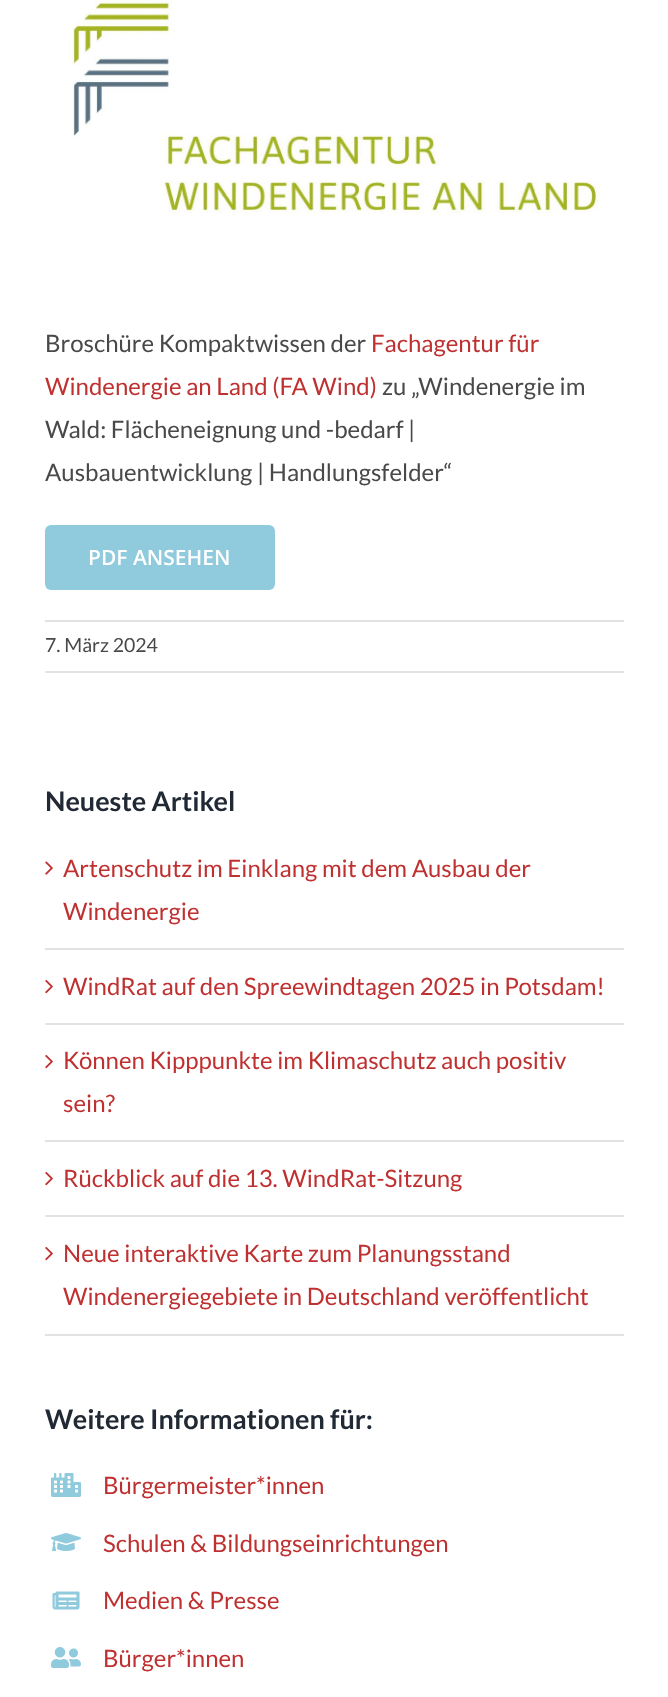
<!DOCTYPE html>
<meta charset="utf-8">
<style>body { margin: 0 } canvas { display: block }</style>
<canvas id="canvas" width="668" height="1697"></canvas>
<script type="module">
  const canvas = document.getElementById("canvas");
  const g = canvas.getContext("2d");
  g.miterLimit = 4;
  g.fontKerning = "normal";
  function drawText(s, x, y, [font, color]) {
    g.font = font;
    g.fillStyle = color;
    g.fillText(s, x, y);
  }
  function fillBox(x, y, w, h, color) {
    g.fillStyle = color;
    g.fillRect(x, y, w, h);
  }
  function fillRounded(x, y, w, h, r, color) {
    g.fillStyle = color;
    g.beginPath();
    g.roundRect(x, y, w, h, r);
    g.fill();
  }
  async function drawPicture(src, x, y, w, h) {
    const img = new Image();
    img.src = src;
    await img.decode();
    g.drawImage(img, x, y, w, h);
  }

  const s1 = ["24px Lato", "#494949"];
  const s2 = ["24px Lato", "#BF3131"];
  const s3 = ["600 21px Open Sans", "#FFFFFF"];
  const s4 = ["19.5px Lato", "#494949"];
  const s5 = ["bold 27px Lato", "#212934"];

  fillBox(0, 0, 668, 1697, "#FFFFFF");
  await drawPicture("pic1.png", 68, 0, 533, 214);
  drawText("Broschüre Kompaktwissen der", 45, 352, s1);
  drawText("Fachagentur für", 371, 352, s2);
  drawText("Windenergie an Land (FA Wind)", 45, 395, s2);
  drawText("zu „Windenergie im", 382, 395, s1);
  drawText("Wald: Flächeneignung und -bedarf |", 45, 438, s1);
  drawText("Ausbauentwicklung | Handlungsfelder“", 45, 481, s1);
  fillRounded(45, 525, 230, 65, 6, "#90CADD");
  drawText("PDF ANSEHEN", 88, 565, s3);
  fillBox(45, 620, 579, 2, "#E2E2E2");
  fillBox(45, 671, 579, 2, "#E2E2E2");
  drawText("7. März 2024", 45, 652, s4);
  drawText("Neueste Artikel", 45, 811, s5);
  fillBox(45, 948, 579, 2, "#E2E2E2");
  await drawPicture("pic2.png", 45, 861, 8, 14);
  drawText("Artenschutz im Einklang mit dem Ausbau der", 63, 877, s2);
  drawText("Windenergie", 63, 920, s2);
  fillBox(45, 1023, 579, 2, "#E2E2E2");
  await drawPicture("pic3.png", 45, 979, 8, 15);
  drawText("WindRat auf den Spreewindtagen 2025 in Potsdam!", 63, 995, s2);
  fillBox(45, 1140, 579, 2, "#E2E2E2");
  await drawPicture("pic3.png", 45, 1054, 8, 15);
  drawText("Können Kipppunkte im Klimaschutz auch positiv", 63, 1069, s2);
  drawText("sein?", 63, 1112, s2);
  fillBox(45, 1215, 579, 2, "#E2E2E2");
  await drawPicture("pic3.png", 45, 1171, 8, 15);
  drawText("Rückblick auf die 13. WindRat-Sitzung", 63, 1187, s2);
  fillBox(45, 1334, 579, 2, "#E2E2E2");
  await drawPicture("pic3.png", 45, 1246, 8, 15);
  drawText("Neue interaktive Karte zum Planungsstand", 63, 1262, s2);
  drawText("Windenergiegebiete in Deutschland veröffentlicht", 63, 1305, s2);
  drawText("Weitere Informationen für:", 45, 1429, s5);
  await drawPicture("pic4.png", 51, 1473, 30, 24);
  drawText("Bürgermeister*innen", 103, 1494, s2);
  await drawPicture("pic5.png", 51, 1533, 30, 18);
  drawText("Schulen & Bildungseinrichtungen", 103, 1552, s2);
  await drawPicture("pic6.png", 52, 1591, 28, 19);
  drawText("Medien & Presse", 103, 1609, s2);
  await drawPicture("pic7.png", 51, 1647, 30, 21);
  drawText("Bürger*innen", 103, 1667, s2);
</script>
